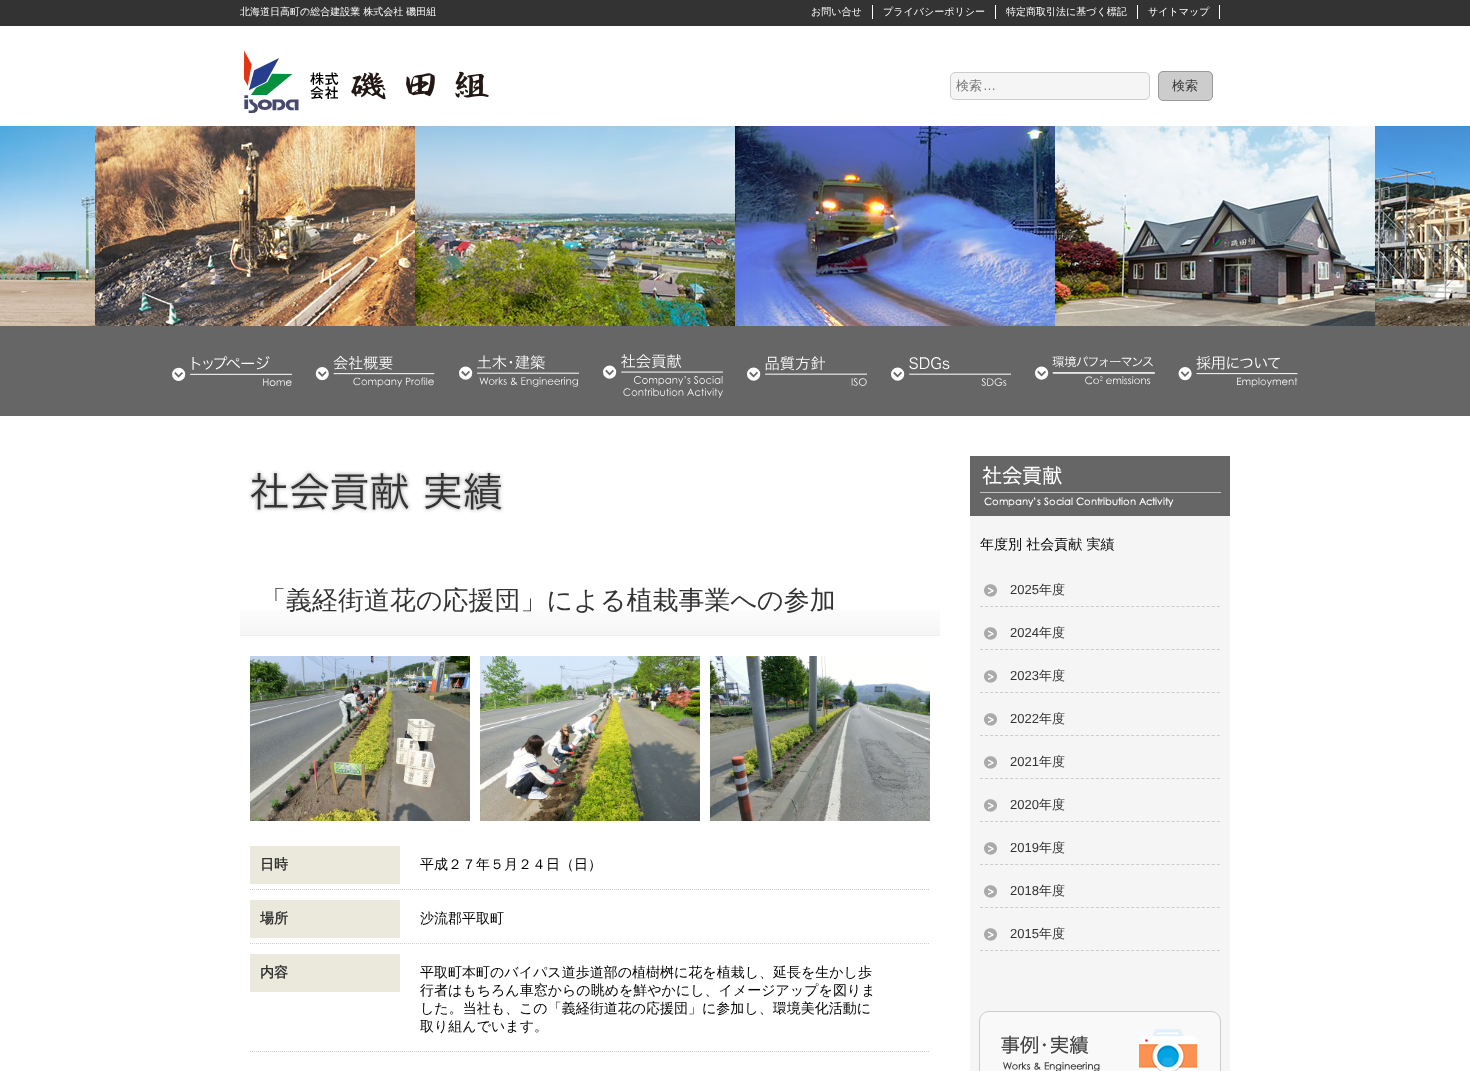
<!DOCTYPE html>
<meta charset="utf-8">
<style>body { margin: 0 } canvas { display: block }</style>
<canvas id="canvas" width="1470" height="1071"></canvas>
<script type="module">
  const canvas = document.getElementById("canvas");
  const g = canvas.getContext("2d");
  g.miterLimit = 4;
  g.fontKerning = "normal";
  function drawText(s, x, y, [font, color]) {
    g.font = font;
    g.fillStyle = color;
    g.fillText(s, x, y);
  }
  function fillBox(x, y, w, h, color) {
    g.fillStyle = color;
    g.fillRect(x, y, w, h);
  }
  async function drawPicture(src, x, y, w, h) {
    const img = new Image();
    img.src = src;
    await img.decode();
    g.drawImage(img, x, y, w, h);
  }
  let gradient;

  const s1 = ["500 10px WenQuanYi Zen Hei", "#FFFFFF"];
  const s2 = ["500 13px WenQuanYi Zen Hei", "#757575"];
  const s3 = ["13px Liberation Sans", "#757575"];
  const s4 = ["500 13px WenQuanYi Zen Hei", "#333333"];
  const s5 = ["500 26px WenQuanYi Zen Hei", "#333333"];
  const s6 = ["bold 14px WenQuanYi Zen Hei", "#333333"];
  const s7 = ["500 14px WenQuanYi Zen Hei", "#000000"];
  const s8 = ["13px Liberation Sans", "#333333"];

  fillBox(0, 0, 1470, 1071, "#FFFFFF");
  fillBox(0, 0, 1470, 26, "#333333");
  drawText("北海道日高町の総合建設業 株式会社 磯田組", 240, 15, s1);
  fillBox(872, 5, 1, 14, "#FFFFFF");
  drawText("お問い合せ", 811, 15, s1);
  fillBox(995, 5, 1, 14, "#FFFFFF");
  drawText("プライバシーポリシー", 883, 15, s1);
  fillBox(1137, 5, 1, 14, "#FFFFFF");
  drawText("特定商取引法に基づく標記", 1006, 15, s1);
  fillBox(1219, 5, 1, 14, "#FFFFFF");
  drawText("サイトマップ", 1148, 15, s1);
  await drawPicture("pic1.png", 244, 50, 245, 63);
  g.fillStyle = "#F5F5F5";
  g.beginPath();
  g.roundRect(950.5, 72.5, 199, 27, 4.5);
  g.fill();
  g.strokeStyle = "#CCCCCC";
  g.stroke();
  drawText("検索", 956, 90, s2);
  drawText("…", 983, 90, s3);
  g.fillStyle = "#CCCCCC";
  g.beginPath();
  g.roundRect(1158.5, 71.5, 54, 29, 4.5);
  g.fill();
  g.strokeStyle = "#999999";
  g.stroke();
  drawText("検索", 1172, 90, s4);
  await drawPicture("pic2.png", 0, 126, 1470, 200);
  fillBox(0, 326, 1470, 90, "#666666");
  await drawPicture("pic3.png", 172, 356, 120, 30);
  await drawPicture("pic4.png", 315, 356, 120, 31);
  await drawPicture("pic5.png", 459, 355, 120, 32);
  await drawPicture("pic6.png", 603, 354, 120, 44);
  await drawPicture("pic7.png", 747, 356, 120, 30);
  await drawPicture("pic8.png", 891, 357, 120, 29);
  await drawPicture("pic9.png", 1035, 356, 120, 29);
  await drawPicture("pic10.png", 1178, 356, 120, 31);
  await drawPicture("pic11.png", 248, 470, 256, 43);
  gradient = g.createLinearGradient(590, 566, 590, 635);
  gradient.addColorStop(0.5, "#FFFFFF");
  gradient.addColorStop(1, "#F5F5F5");
  g.fillStyle = gradient;
  g.fillRect(240, 609, 700, 26);
  fillBox(240, 635, 700, 1, "#EFEFEF");
  drawText("「義経街道花の応援団」による植栽事業への参加", 260, 609, s5);
  await drawPicture("pic12.png", 250, 656, 220, 165);
  await drawPicture("pic13.png", 480, 656, 220, 165);
  await drawPicture("pic14.png", 710, 656, 220, 165);
  g.beginPath();
  g.moveTo(250, 889.5);
  g.lineTo(930, 889.5);
  g.strokeStyle = "#CCCCCC";
  g.setLineDash([1, 1]);
  g.stroke();
  fillBox(250, 846, 150, 38, "#EBE9DC");
  drawText("日時", 260, 869, s6);
  drawText("平成２７年５月２４日（日）", 420, 869, s7);
  g.beginPath();
  g.moveTo(250, 943.5);
  g.lineTo(930, 943.5);
  g.stroke();
  fillBox(250, 900, 150, 38, "#EBE9DC");
  drawText("場所", 260, 923, s6);
  drawText("沙流郡平取町", 420, 923, s7);
  g.beginPath();
  g.moveTo(250, 1051.5);
  g.lineTo(930, 1051.5);
  g.stroke();
  fillBox(250, 954, 150, 38, "#EBE9DC");
  drawText("内容", 260, 977, s6);
  drawText("平取町本町のバイパス道歩道部の植樹桝に花を植栽し、延長を生かし歩", 420, 977, s7);
  drawText("行者はもちろん車窓からの眺めを鮮やかにし、イメージアップを図りま", 420, 995, s7);
  drawText("した。当社も、この「義経街道花の応援団」に参加し、環境美化活動に", 420, 1013, s7);
  drawText("取り組んでいます。", 420, 1031, s7);
  fillBox(970, 516, 260, 555, "#F5F5F5");
  fillBox(970, 456, 260, 60, "#666666");
  await drawPicture("pic15.png", 980, 466, 241, 41);
  drawText("年度別 社会貢献 実績", 980, 549, s7);
  await drawPicture("pic16.png", 984, 584, 13, 13);
  g.beginPath();
  g.moveTo(980, 606.5);
  g.lineTo(1220, 606.5);
  g.setLineDash([3, 2.04]);
  g.stroke();
  drawText("2025", 1010, 594, s8);
  drawText("年度", 1039, 594, s4);
  await drawPicture("pic16.png", 984, 627, 13, 13);
  g.beginPath();
  g.moveTo(980, 649.5);
  g.lineTo(1220, 649.5);
  g.stroke();
  drawText("2024", 1010, 637, s8);
  drawText("年度", 1039, 637, s4);
  await drawPicture("pic16.png", 984, 670, 13, 13);
  g.beginPath();
  g.moveTo(980, 692.5);
  g.lineTo(1220, 692.5);
  g.stroke();
  drawText("2023", 1010, 680, s8);
  drawText("年度", 1039, 680, s4);
  await drawPicture("pic16.png", 984, 713, 13, 13);
  g.beginPath();
  g.moveTo(980, 735.5);
  g.lineTo(1220, 735.5);
  g.stroke();
  drawText("2022", 1010, 723, s8);
  drawText("年度", 1039, 723, s4);
  await drawPicture("pic16.png", 984, 756, 13, 13);
  g.beginPath();
  g.moveTo(980, 778.5);
  g.lineTo(1220, 778.5);
  g.stroke();
  drawText("2021", 1010, 766, s8);
  drawText("年度", 1039, 766, s4);
  await drawPicture("pic16.png", 984, 799, 13, 13);
  g.beginPath();
  g.moveTo(980, 821.5);
  g.lineTo(1220, 821.5);
  g.stroke();
  drawText("2020", 1010, 809, s8);
  drawText("年度", 1039, 809, s4);
  await drawPicture("pic16.png", 984, 842, 13, 13);
  g.beginPath();
  g.moveTo(980, 864.5);
  g.lineTo(1220, 864.5);
  g.stroke();
  drawText("2019", 1010, 852, s8);
  drawText("年度", 1039, 852, s4);
  await drawPicture("pic16.png", 984, 885, 13, 13);
  g.beginPath();
  g.moveTo(980, 907.5);
  g.lineTo(1220, 907.5);
  g.stroke();
  drawText("2018", 1010, 895, s8);
  drawText("年度", 1039, 895, s4);
  await drawPicture("pic16.png", 984, 928, 13, 13);
  g.beginPath();
  g.moveTo(980, 950.5);
  g.lineTo(1220, 950.5);
  g.stroke();
  drawText("2015", 1010, 938, s8);
  drawText("年度", 1039, 938, s4);
  g.fillStyle = "#F9F9F9";
  g.beginPath();
  g.roundRect(979.5, 1011.5, 241, 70, 9.5);
  g.fill();
  g.setLineDash([]);
  g.stroke();
  await drawPicture("pic17.png", 1001, 1029, 196, 42);
</script>
